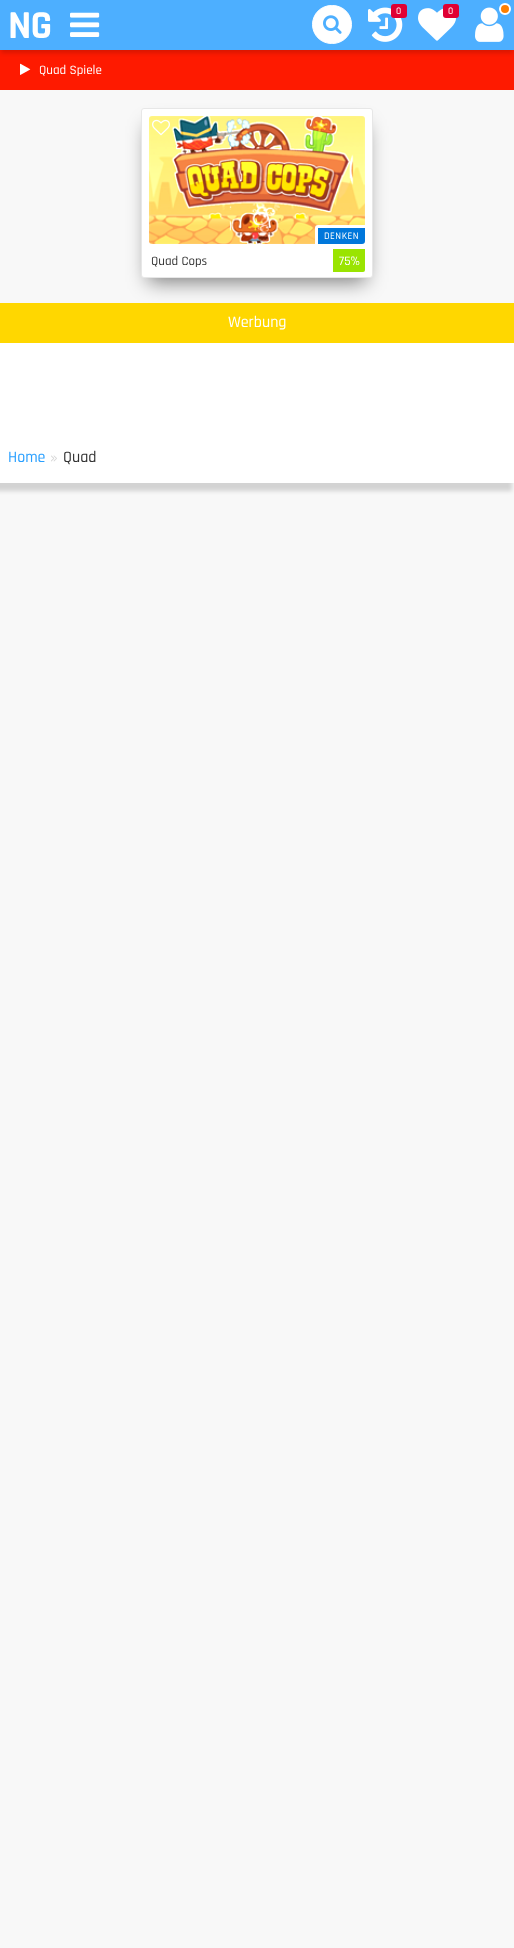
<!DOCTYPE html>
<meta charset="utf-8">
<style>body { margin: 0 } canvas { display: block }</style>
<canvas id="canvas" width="514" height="1948"></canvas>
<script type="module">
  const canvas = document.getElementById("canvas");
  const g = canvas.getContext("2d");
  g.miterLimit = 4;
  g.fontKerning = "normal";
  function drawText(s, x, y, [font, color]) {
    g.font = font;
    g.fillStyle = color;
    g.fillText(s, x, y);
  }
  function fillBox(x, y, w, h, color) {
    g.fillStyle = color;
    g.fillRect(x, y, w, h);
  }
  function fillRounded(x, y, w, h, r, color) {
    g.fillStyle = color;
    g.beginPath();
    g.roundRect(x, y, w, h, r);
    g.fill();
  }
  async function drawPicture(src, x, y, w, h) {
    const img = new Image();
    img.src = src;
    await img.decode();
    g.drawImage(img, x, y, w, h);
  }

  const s1 = ["500 10px Rajdhani", "#FFFFFF"];
  const s2 = ["bold 40px Rajdhani", "#FFFFFF"];
  const s3 = ["500 13px Rajdhani", "#FFFFFF"];
  const s4 = ["500 13px Rajdhani", "#333333"];
  const s5 = ["500 16px Rajdhani", "#FFFFFF"];
  const s6 = ["500 16px Rajdhani", "#289FFF"];
  const s7 = ["500 18px Rajdhani", "#D6D6D6"];
  const s8 = ["500 16px Rajdhani", "#333333"];

  fillBox(0, 0, 514, 1948, "#F8F8F8");
  fillBox(0, 50, 514, 40, "#FE1A00");
  g.fillStyle = "rgba(0, 0, 0, 0.15)";
  g.filter = "blur(2px)";
  g.beginPath();
  g.rect(1, 5, 512, 48);
  g.fill();
  g.filter = "none";
  fillBox(0, 0, 514, 50, "#4DAFFF");
  g.fillStyle = "#FFFFFF";
  g.beginPath();
  g.roundRect(312.5, 5.5, 39, 38, 19);
  g.fill();
  g.strokeStyle = "#FFFFFF";
  g.stroke();
  await drawPicture("pic1.png", 323, 15, 19, 19);
  await drawPicture("pic2.png", 368, 7, 35, 35);
  fillRounded(391, 4, 16, 14, 3, "#E00034");
  drawText("0", 396, 14, s1);
  await drawPicture("pic3.png", 418, 8, 38, 33);
  fillRounded(443, 4, 16, 14, 3, "#E00034");
  drawText("0", 448, 14, s1);
  await drawPicture("pic4.png", 475, 7, 29, 35);
  g.fillStyle = "#FF7F00";
  g.beginPath();
  g.arc(505, 9, 5, 0, Math.PI * 2);
  g.fill();
  g.lineWidth = 2;
  g.stroke();
  g.letterSpacing = "-1px";
  drawText("NG", 8, 38, s2);
  await drawPicture("pic5.png", 70, 12, 30, 25);
  await drawPicture("pic6.png", 20, 63, 11, 12);
  g.letterSpacing = "0px";
  drawText("Quad Spiele", 39, 74, s3);
  fillBox(0, 303, 514, 40, "#FFD700");
  g.fillStyle = "rgba(0, 0, 0, 0.5)";
  g.filter = "blur(10px)";
  g.beginPath();
  g.rect(148, 126, 218, 156);
  g.fill();
  g.filter = "none";
  g.fillStyle = "#FFFFFF";
  g.beginPath();
  g.roundRect(141.5, 108.5, 231, 169, 2.5);
  g.fill();
  g.strokeStyle = "#E7E7E7";
  g.lineWidth = 1;
  g.stroke();
  await drawPicture("pic8.png", 149, 116, 216, 128);
  await drawPicture("pic7.png", 152, 119, 18, 17);
  g.fillStyle = "#0077DB";
  g.beginPath();
  g.roundRect(316.5, 226.5, 50, 19, [1.5, 0, 4.5, 0]);
  g.fill();
  g.strokeStyle = "#FFFFFF";
  g.lineWidth = 3;
  g.stroke();
  g.letterSpacing = "0.5px";
  drawText("DENKEN", 324, 239, s1);
  g.letterSpacing = "0px";
  drawText("Quad Cops", 151, 265, s4);
  g.fillStyle = "#9AE401";
  g.beginPath();
  g.roundRect(333, 249, 32, 23, [0, 0, 2, 0]);
  g.fill();
  drawText("75%", 339, 265, s3);
  drawText("Werbung", 228, 327, s5);
  g.fillStyle = "rgba(0, 0, 0, 0.15)";
  g.filter = "blur(2px)";
  g.beginPath();
  g.rect(-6, 433, 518, 58);
  g.fill();
  g.filter = "none";
  fillBox(0, 343, 514, 140, "#FFFFFF");
  drawText("Home", 8, 462, s6);
  drawText("»", 50, 463, s7);
  drawText("Quad", 63, 462, s8);
</script>
